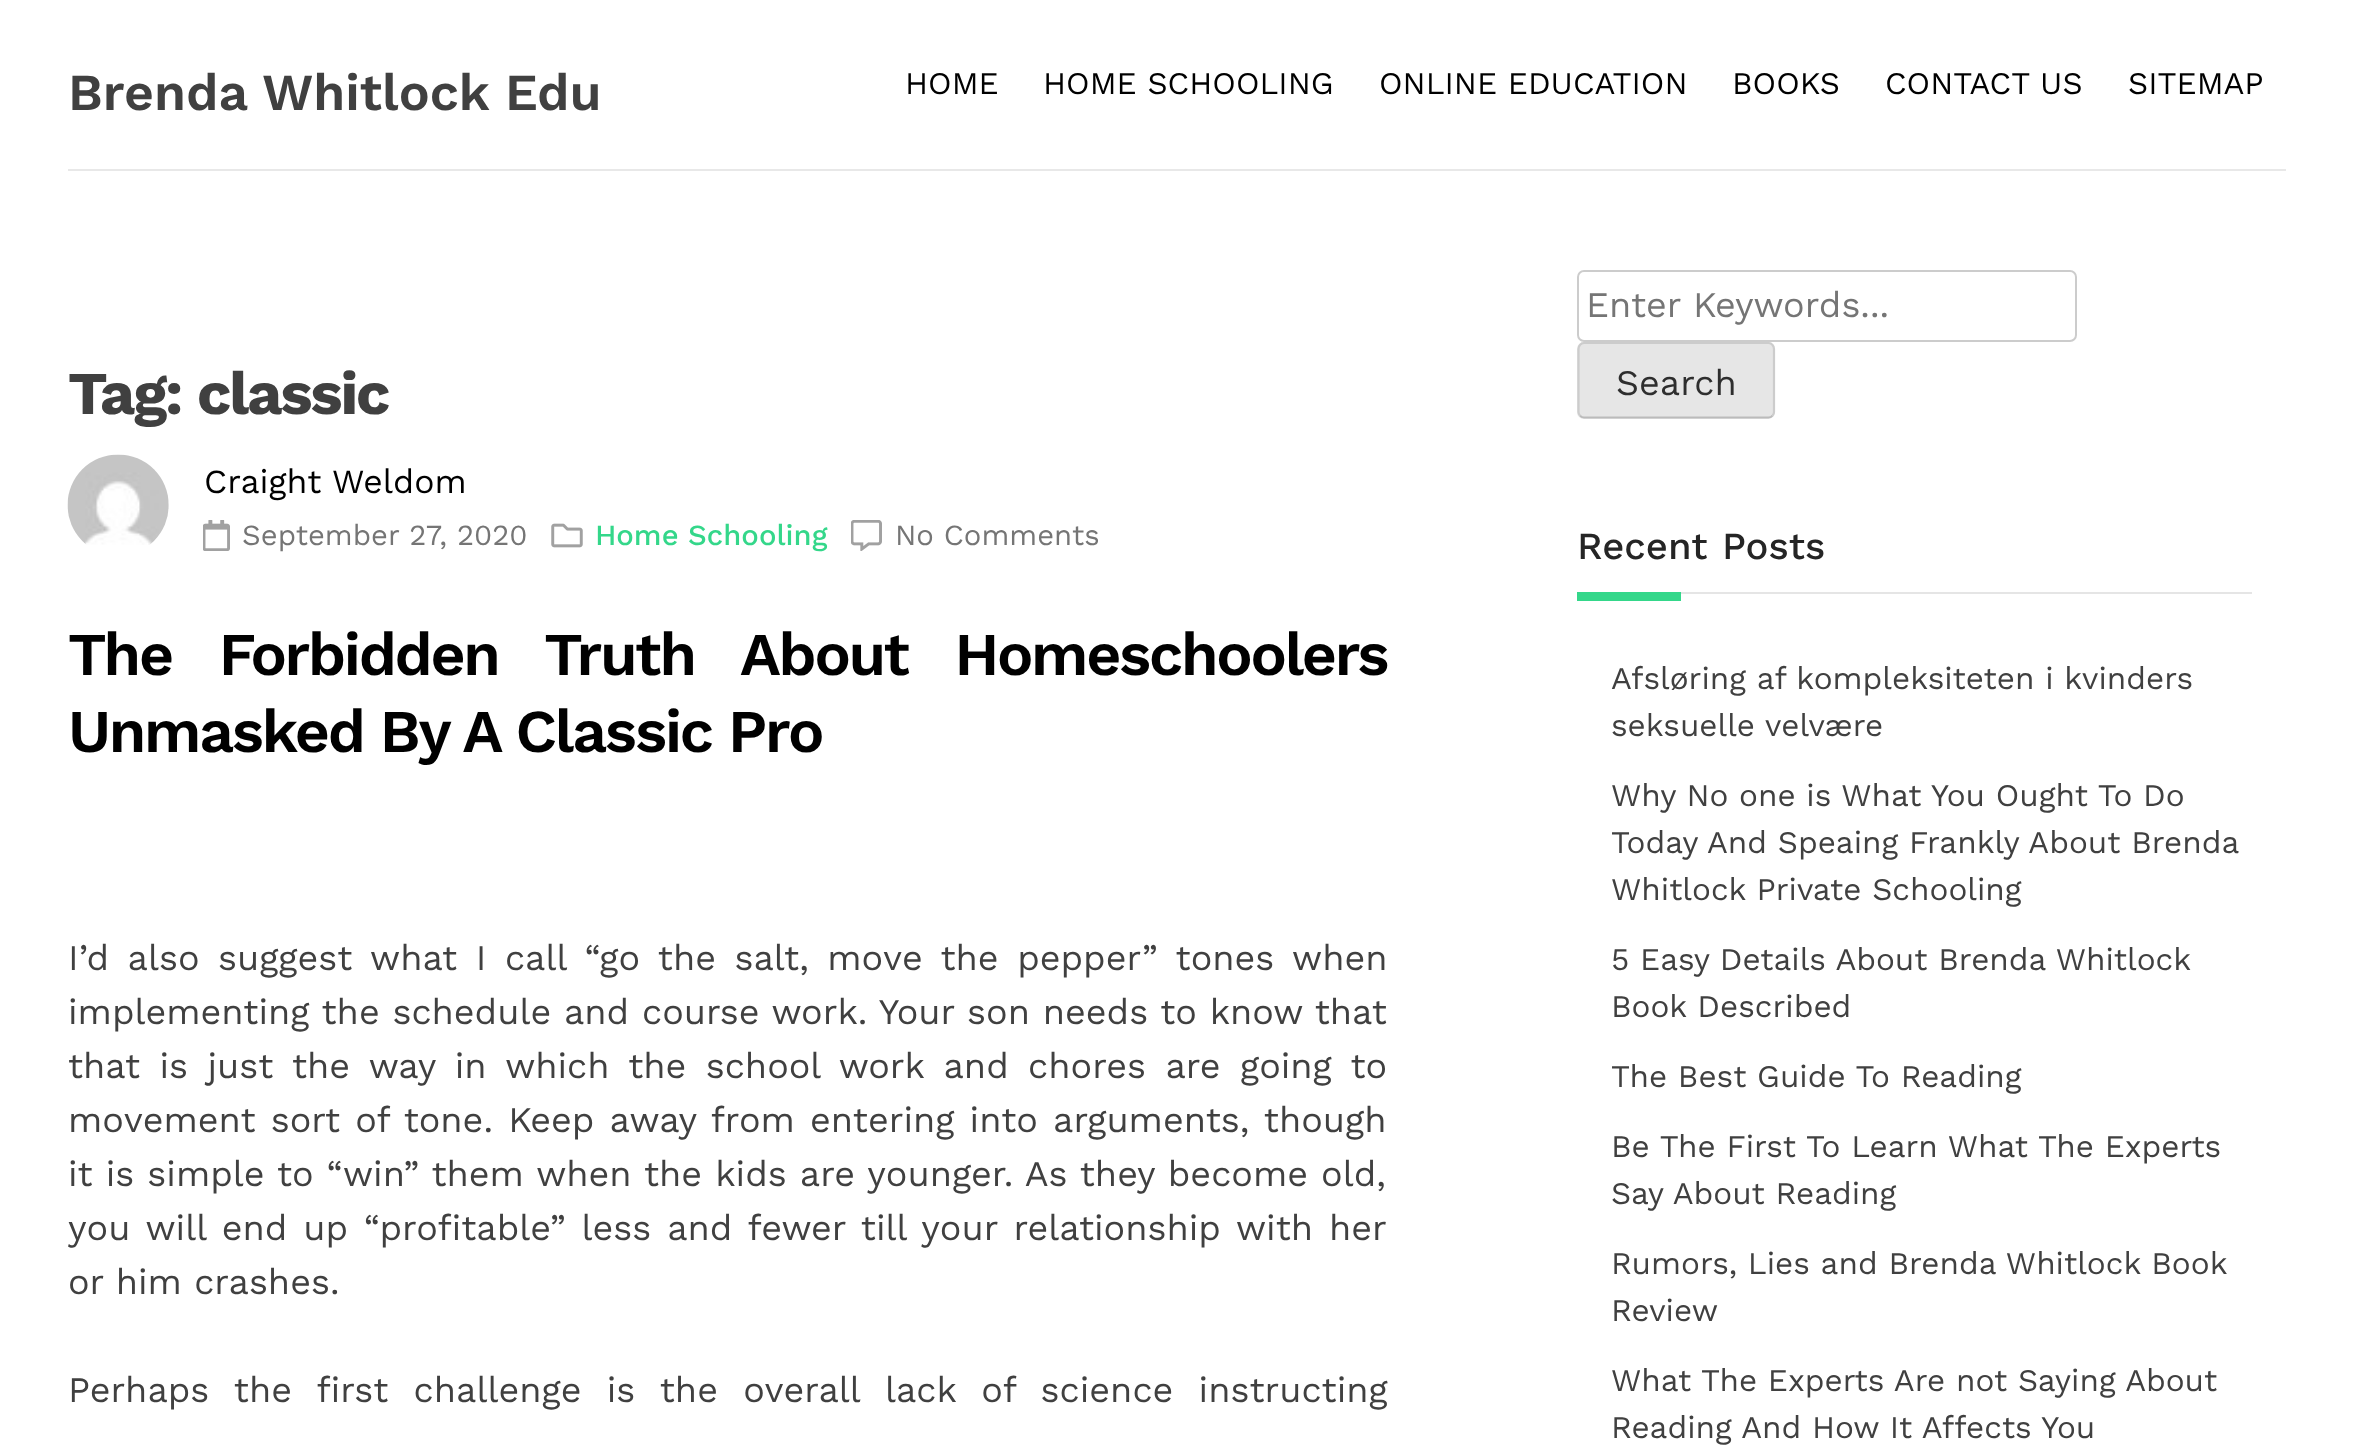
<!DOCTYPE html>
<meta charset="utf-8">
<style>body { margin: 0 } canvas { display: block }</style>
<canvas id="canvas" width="2353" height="1449"></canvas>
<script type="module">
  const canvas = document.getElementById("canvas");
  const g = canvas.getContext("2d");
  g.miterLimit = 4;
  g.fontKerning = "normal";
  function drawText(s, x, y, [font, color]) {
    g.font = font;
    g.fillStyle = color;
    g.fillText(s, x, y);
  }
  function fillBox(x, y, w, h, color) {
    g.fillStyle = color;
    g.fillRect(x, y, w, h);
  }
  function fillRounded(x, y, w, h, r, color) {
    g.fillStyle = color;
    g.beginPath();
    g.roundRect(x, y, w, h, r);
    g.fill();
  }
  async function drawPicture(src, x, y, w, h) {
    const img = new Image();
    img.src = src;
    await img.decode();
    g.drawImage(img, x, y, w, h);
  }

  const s1 = ["600 51.75px Work Sans", "#404040"];
  const s2 = ["31.5px Work Sans", "#000000"];
  const s3 = ["bold 60.75px Work Sans", "#404040"];
  const s4 = ["33.75px Work Sans", "#000000"];
  const s5 = ["29.25px Work Sans", "#757575"];
  const s6 = ["500 29.25px Work Sans", "#34D78A"];
  const s7 = ["600 60.75px Work Sans", "#000000"];
  const s8 = ["36px Work Sans", "#404040"];
  const s9 = ["36px Work Sans", "#757575"];
  const s10 = ["36px Work Sans", "#2E2E2E"];
  const s11 = ["500 38.25px Work Sans", "#252525"];
  const s12 = ["31.5px Work Sans", "#404040"];

  fillBox(0, 0, 2353, 1449, "#FFFFFF");
  fillBox(68, 169, 2218, 2, "#E8E8E8");
  drawText("Brenda Whitlock Edu", 68, 110, s1);
  drawText("HOME", 905, 94, s2);
  drawText("HOME SCHOOLING", 1043, 94, s2);
  drawText("ONLINE EDUCATION", 1379, 94, s2);
  drawText("BOOKS", 1732, 94, s2);
  drawText("CONTACT US", 1885, 94, s2);
  drawText("SITEMAP", 2128, 94, s2);
  g.letterSpacing = "-2.25px";
  drawText("Tag: classic", 68, 414, s3);
  await drawPicture("pic1.png", 67, 454, 102, 91);
  g.letterSpacing = "0px";
  drawText("Craight Weldom", 204, 493, s4);
  await drawPicture("pic2.png", 203, 520, 27, 31);
  drawText("September 27, 2020", 242, 545, s5);
  await drawPicture("pic3.png", 551, 523, 32, 25);
  drawText("Home Schooling", 595, 545, s6);
  await drawPicture("pic4.png", 851, 520, 31, 31);
  drawText("No Comments", 895, 545, s5);
  g.letterSpacing = "-2.25px";
  g.wordSpacing = "30.5px";
  drawText("The Forbidden Truth About Homeschoolers", 68, 675, s7);
  g.wordSpacing = "0px";
  drawText("Unmasked By A Classic Pro", 68, 752, s7);
  g.letterSpacing = "0px";
  g.wordSpacing = "6.25px";
  drawText("I’d also suggest what I call “go the salt, move the pepper” tones when", 68, 970, s8);
  g.wordSpacing = "0.5px";
  drawText("implementing the schedule and course work. Your son needs to know that", 68, 1024, s8);
  g.wordSpacing = "7.1px";
  drawText("that is just the way in which the school work and chores are going to", 68, 1078, s8);
  g.wordSpacing = "2.9px";
  drawText("movement sort of tone. Keep away from entering into arguments, though", 68, 1132, s8);
  g.wordSpacing = "0.8px";
  drawText("it is simple to “win” them when the kids are younger. As they become old,", 68, 1186, s8);
  g.wordSpacing = "3.6px";
  drawText("you will end up “profitable” less and fewer till your relationship with her", 68, 1240, s8);
  g.wordSpacing = "0px";
  drawText("or him crashes.", 68, 1294, s8);
  g.wordSpacing = "13px";
  drawText("Perhaps the first challenge is the overall lack of science instructing", 68, 1402, s8);
  g.beginPath();
  g.roundRect(1578, 271, 498, 70, 6);
  g.strokeStyle = "#CCCCCC";
  g.lineWidth = 2;
  g.stroke();
  g.wordSpacing = "0px";
  drawText("Enter Keywords...", 1586, 317, s9);
  fillRounded(1577, 342, 198, 77, 7, "#E6E6E6");
  g.beginPath();
  g.moveTo(1772.5, 415.5);
  g.bezierCurveTo(1771.5, 417, 1770, 417.5, 1768.5, 417.5);
  g.lineTo(1584, 417.5);
  g.bezierCurveTo(1582.5, 417.5, 1581, 417, 1580, 415.5);
  g.strokeStyle = "#BBBBBB";
  g.lineWidth = 2.2;
  g.stroke();
  g.beginPath();
  g.moveTo(1580, 415.5);
  g.bezierCurveTo(1579, 414.5, 1578.5, 413, 1578.5, 412);
  g.lineTo(1578.5, 349);
  g.bezierCurveTo(1578.5, 347.5, 1579, 346, 1580, 345);
  g.bezierCurveTo(1581, 343.5, 1582.5, 343, 1584, 343);
  g.lineTo(1768.5, 343);
  g.bezierCurveTo(1770, 343, 1771.5, 343.5, 1772.5, 345);
  g.bezierCurveTo(1773.5, 346, 1774, 347.5, 1774, 349);
  g.lineTo(1774, 412);
  g.bezierCurveTo(1774, 413, 1773.5, 414.5, 1772.5, 415.5);
  g.strokeStyle = "#CCCCCC";
  g.stroke();
  drawText("Search", 1616, 395, s10);
  fillBox(1681, 592, 571, 2, "#E5E5E5");
  g.wordSpacing = "2px";
  drawText("Recent Posts", 1577, 559, s11);
  fillBox(1577, 592, 104, 9, "#34D78A");
  g.wordSpacing = "0px";
  drawText("Afsløring af kompleksiteten i kvinders", 1611, 689, s12);
  drawText("seksuelle velvære", 1611, 736, s12);
  drawText("Why No one is What You Ought To Do", 1611, 806, s12);
  drawText("Today And Speaing Frankly About Brenda", 1611, 853, s12);
  drawText("Whitlock Private Schooling", 1611, 900, s12);
  drawText("5 Easy Details About Brenda Whitlock", 1611, 970, s12);
  drawText("Book Described", 1611, 1017, s12);
  drawText("The Best Guide To Reading", 1611, 1087, s12);
  drawText("Be The First To Learn What The Experts", 1611, 1157, s12);
  drawText("Say About Reading", 1611, 1204, s12);
  drawText("Rumors, Lies and Brenda Whitlock Book", 1611, 1274, s12);
  drawText("Review", 1611, 1321, s12);
  drawText("What The Experts Are not Saying About", 1611, 1391, s12);
  drawText("Reading And How It Affects You", 1611, 1438, s12);
</script>
